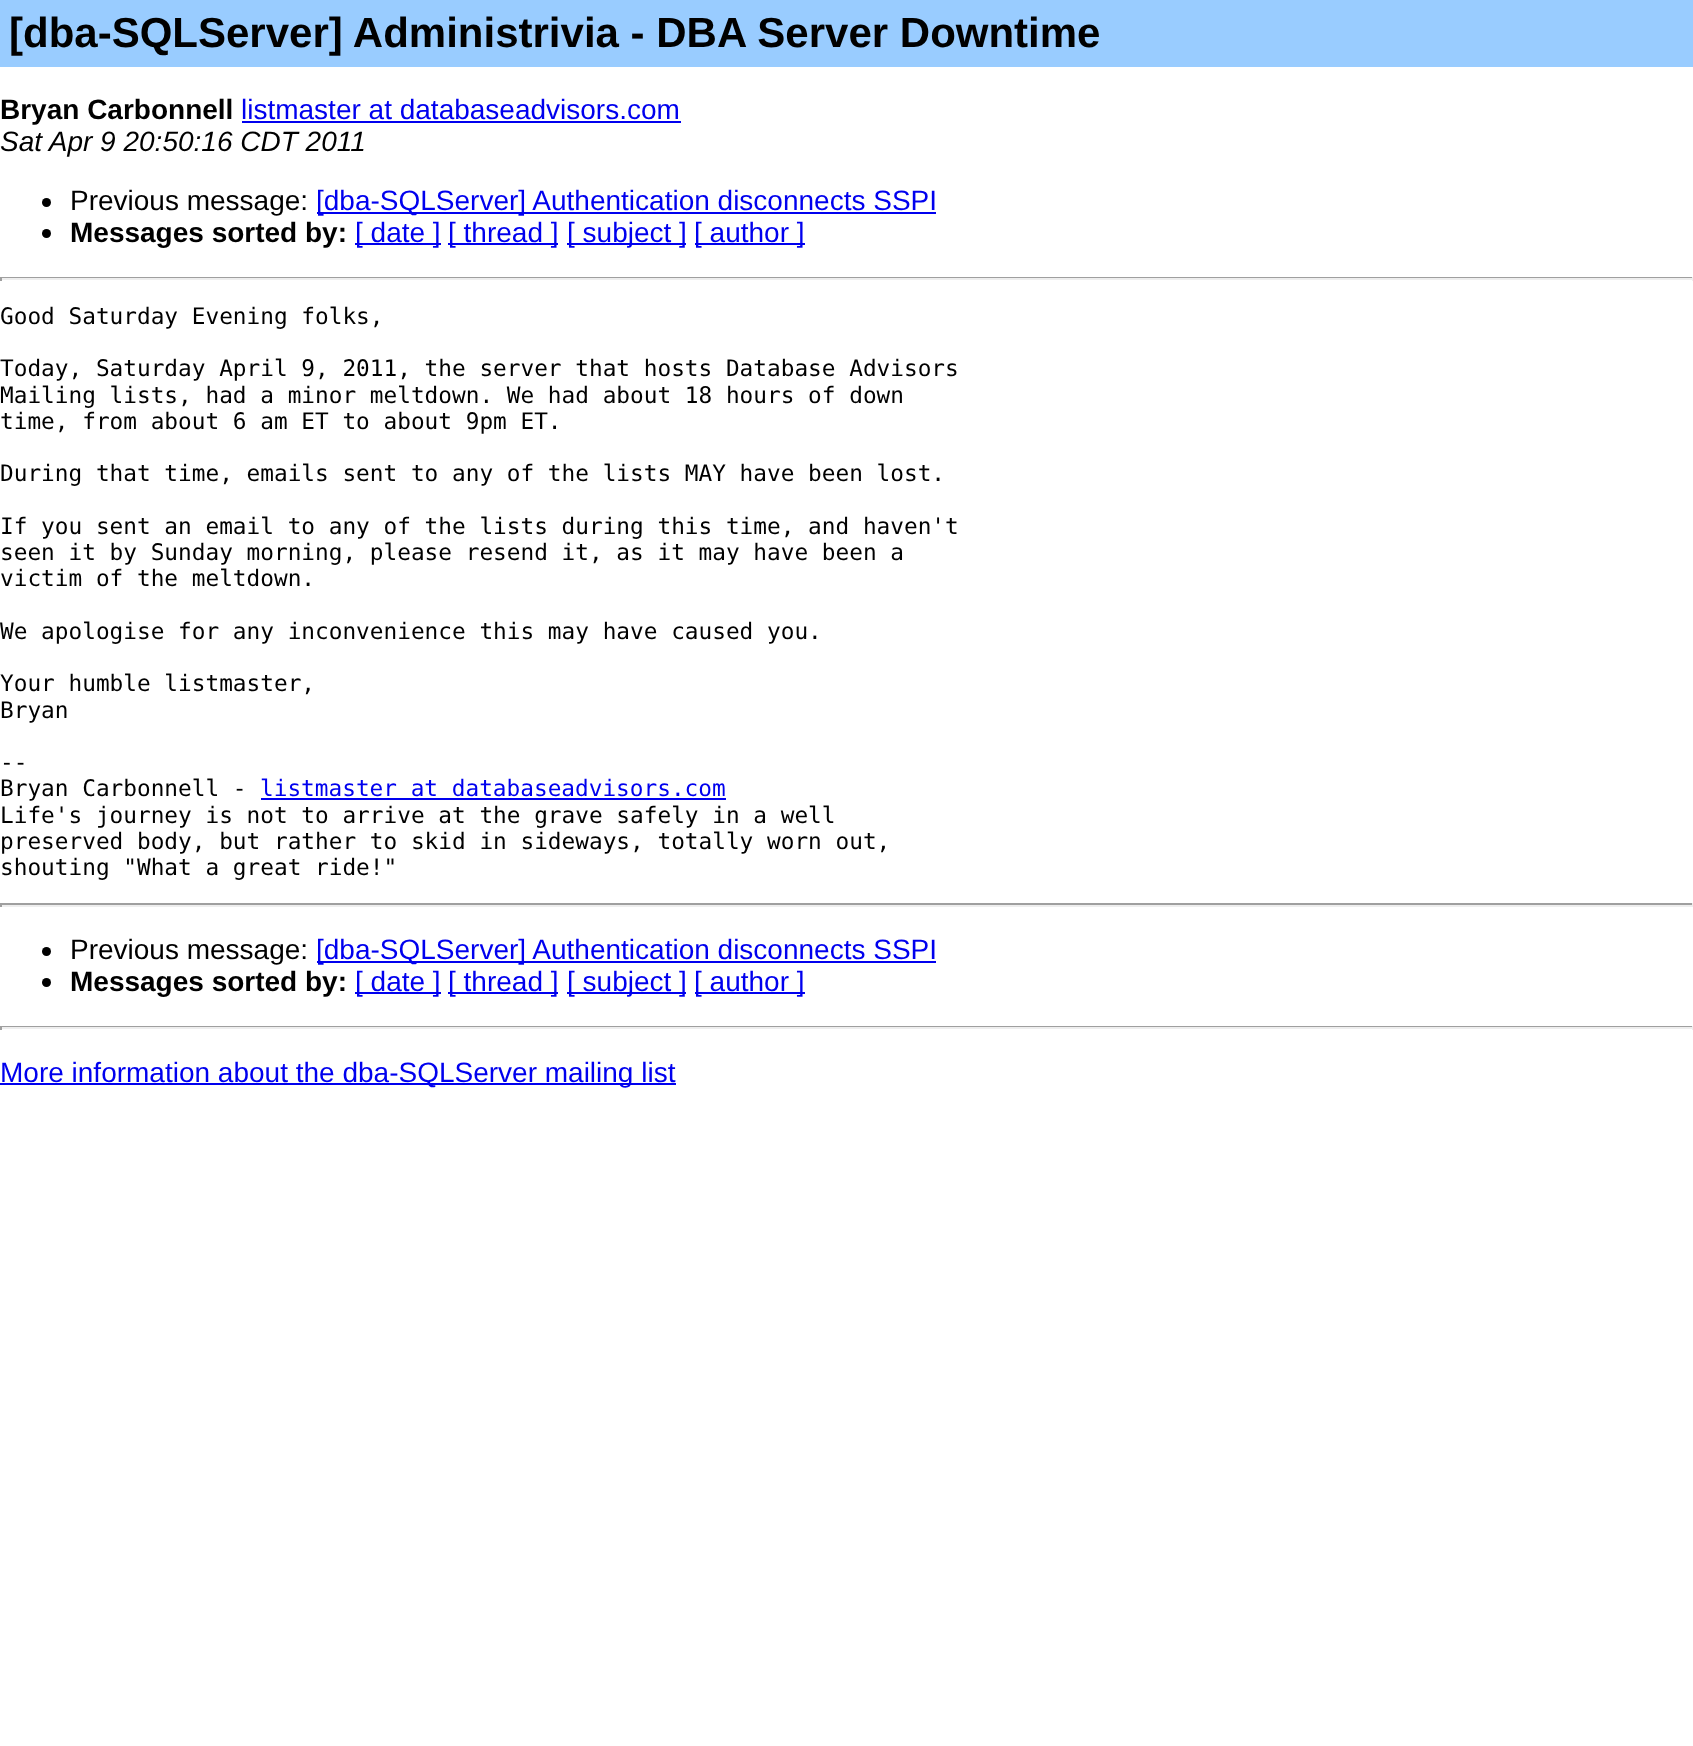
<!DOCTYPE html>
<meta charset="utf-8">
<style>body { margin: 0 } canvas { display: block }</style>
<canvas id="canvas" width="1693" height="1746"></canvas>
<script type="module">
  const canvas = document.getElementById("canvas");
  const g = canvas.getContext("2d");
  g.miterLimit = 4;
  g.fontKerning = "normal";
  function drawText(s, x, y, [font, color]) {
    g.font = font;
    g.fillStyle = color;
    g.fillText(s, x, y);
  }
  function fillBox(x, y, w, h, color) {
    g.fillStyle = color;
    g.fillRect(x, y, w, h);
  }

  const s1 = ["bold 42px Liberation Sans", "#000000"];
  const s2 = ["bold 28px Liberation Sans", "#000000"];
  const s3 = ["28px Liberation Sans", "#0000EE"];
  const s4 = ["italic 28px Liberation Sans", "#000000"];
  const s5 = ["28px Liberation Sans", "#000000"];
  const s6 = ["22.75px DejaVu Sans Mono", "#000000"];
  const s7 = ["22.75px DejaVu Sans Mono", "#0000EE"];

  fillBox(0, 0, 1693, 1746, "#FFFFFF");
  fillBox(0, 0, 1693, 67, "#99CCFF");
  drawText("[dba-SQLServer] Administrivia - DBA Server Downtime", 9, 47, s1);
  drawText("Bryan Carbonnell", 0, 119, s2);
  drawText("listmaster at databaseadvisors.com", 241, 119, s3);
  fillBox(242, 121, 439, 2, "#0000EE");
  drawText("Sat Apr 9 20:50:16 CDT 2011", 0, 151, s4);
  g.beginPath();
  g.arc(46.5, 202.5, 4.5, 0, Math.PI * 2);
  g.fill();
  drawText("Previous message:", 70, 210, s5);
  fillBox(317, 212, 619, 2, "#0000EE");
  drawText("[dba-SQLServer] Authentication disconnects SSPI", 316, 210, s3);
  g.fillStyle = "#000000";
  g.beginPath();
  g.arc(46.5, 233.5, 4.5, 0, Math.PI * 2);
  g.fill();
  drawText("Messages sorted by:", 70, 242, s2);
  fillBox(355, 243, 86, 2, "#0000EE");
  drawText("[ date ]", 355, 242, s3);
  fillBox(448, 243, 110, 2, "#0000EE");
  drawText("[ thread ]", 448, 242, s3);
  fillBox(567, 243, 119, 2, "#0000EE");
  drawText("[ subject ]", 567, 242, s3);
  fillBox(695, 243, 110, 2, "#0000EE");
  drawText("[ author ]", 694, 242, s3);
  fillBox(0, 277, 1693, 1, "#9F9F9F");
  fillBox(1692, 277, 1, 4, "#EEEEEE");
  fillBox(0, 278, 1693, 2, "#EEEEEE");
  fillBox(0, 277, 2, 4, "#9F9F9F");
  drawText("Good Saturday Evening folks,", 0, 324, s6);
  drawText("Today, Saturday April 9, 2011, the server that hosts Database Advisors", 0, 376, s6);
  drawText("Mailing lists, had a minor meltdown. We had about 18 hours of down", 0, 403, s6);
  drawText("time, from about 6 am ET to about 9pm ET.", 0, 429, s6);
  drawText("During that time, emails sent to any of the lists MAY have been lost.", 0, 481, s6);
  drawText("If you sent an email to any of the lists during this time, and haven't", 0, 534, s6);
  drawText("seen it by Sunday morning, please resend it, as it may have been a", 0, 560, s6);
  drawText("victim of the meltdown.", 0, 586, s6);
  drawText("We apologise for any inconvenience this may have caused you.", 0, 639, s6);
  drawText("Your humble listmaster,", 0, 691, s6);
  drawText("Bryan", 0, 718, s6);
  drawText("--", 0, 770, s6);
  drawText("Bryan Carbonnell -", 0, 796, s6);
  drawText("listmaster at databaseadvisors.com", 260, 796, s7);
  fillBox(261, 798, 465, 2, "#0000EE");
  drawText("Life's journey is not to arrive at the grave safely in a well", 0, 823, s6);
  drawText("preserved body, but rather to skid in sideways, totally worn out,", 0, 849, s6);
  drawText("shouting \"What a great ride!\"", 0, 875, s6);
  fillBox(0, 903, 1693, 2, "#9F9F9F");
  fillBox(1692, 903, 1, 4, "#EEEEEE");
  fillBox(0, 905, 1693, 2, "#EEEEEE");
  fillBox(0, 903, 2, 4, "#9F9F9F");
  g.fillStyle = "#000000";
  g.beginPath();
  g.arc(46.5, 951.5, 4.5, 0, Math.PI * 2);
  g.fill();
  drawText("Previous message:", 70, 959, s5);
  fillBox(317, 961, 619, 2, "#0000EE");
  drawText("[dba-SQLServer] Authentication disconnects SSPI", 316, 959, s3);
  g.fillStyle = "#000000";
  g.beginPath();
  g.arc(46.5, 982.5, 4.5, 0, Math.PI * 2);
  g.fill();
  drawText("Messages sorted by:", 70, 991, s2);
  fillBox(355, 992, 86, 2, "#0000EE");
  drawText("[ date ]", 355, 991, s3);
  fillBox(448, 992, 110, 2, "#0000EE");
  drawText("[ thread ]", 448, 991, s3);
  fillBox(567, 992, 119, 2, "#0000EE");
  drawText("[ subject ]", 567, 991, s3);
  fillBox(695, 992, 110, 2, "#0000EE");
  drawText("[ author ]", 694, 991, s3);
  fillBox(0, 1026, 1693, 1, "#9F9F9F");
  fillBox(1692, 1026, 1, 4, "#EEEEEE");
  fillBox(0, 1027, 1693, 2, "#EEEEEE");
  fillBox(0, 1026, 2, 4, "#9F9F9F");
  fillBox(0, 1083, 676, 2, "#0000EE");
  drawText("More information about the dba-SQLServer mailing list", 0, 1082, s3);
</script>
